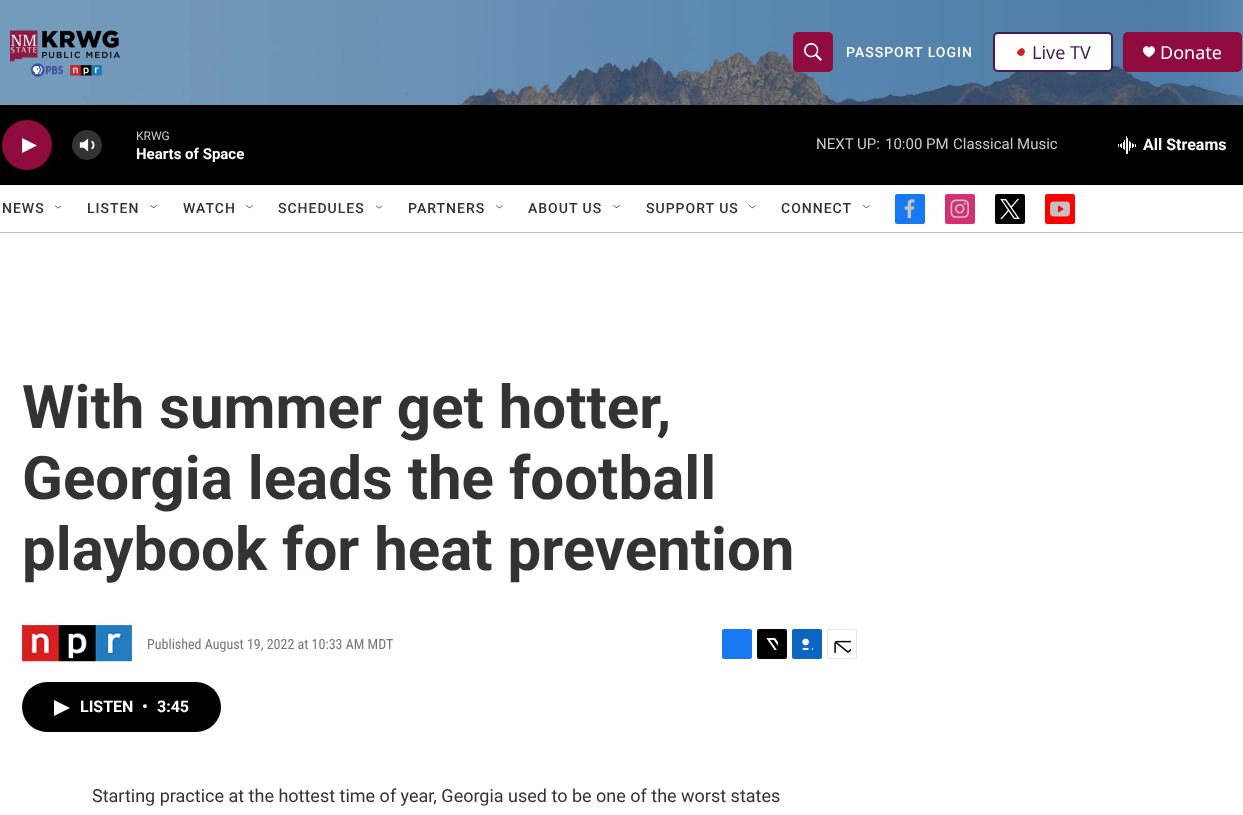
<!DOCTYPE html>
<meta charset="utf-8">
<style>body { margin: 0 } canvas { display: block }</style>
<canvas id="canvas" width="1243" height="815"></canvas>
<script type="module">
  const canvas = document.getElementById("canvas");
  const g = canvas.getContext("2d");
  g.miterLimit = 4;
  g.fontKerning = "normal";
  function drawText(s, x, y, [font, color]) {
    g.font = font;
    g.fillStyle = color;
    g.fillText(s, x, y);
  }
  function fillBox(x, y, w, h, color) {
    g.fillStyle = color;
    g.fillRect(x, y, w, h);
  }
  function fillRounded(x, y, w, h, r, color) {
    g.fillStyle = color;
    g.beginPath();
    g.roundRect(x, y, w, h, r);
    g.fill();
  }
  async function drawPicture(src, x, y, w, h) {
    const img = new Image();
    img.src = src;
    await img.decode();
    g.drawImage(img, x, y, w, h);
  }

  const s1 = ["500 14px Roboto", "#FFFFFF"];
  const s2 = ["18px Noto Sans", "#411C58"];
  const s3 = ["18px Noto Sans", "#FFFFFF"];
  const s4 = ["12px Roboto", "#CCCCCC"];
  const s5 = ["bold 15px 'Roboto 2'", "#FFFFFF"];
  const s6 = ["15px Roboto", "#CCCCCC"];
  const s7 = ["bold 16px 'Roboto 2'", "#FFFFFF"];
  const s8 = ["500 14px Roboto", "#333333"];
  const s9 = ["bold 60px Roboto", "#333333"];
  const s10 = ["14px Roboto Condensed", "#767676"];
  const s11 = ["18px Roboto", "#333333"];

  fillBox(0, 0, 1243, 815, "#FFFFFF");
  fillBox(0, 232, 1243, 1, "#C2C2C2");
  await drawPicture("pic1.png", 0, 0, 1243, 105);
  await drawPicture("pic2.png", 10, 30, 110, 47);
  fillRounded(793, 32, 40, 40, 5, "#900C3F");
  await drawPicture("pic3.png", 804, 43, 18, 18);
  g.letterSpacing = "1px";
  drawText("PASSPORT LOGIN", 846, 57, s1);
  g.beginPath();
  g.roundRect(994, 33, 118, 38, 4);
  g.fill();
  g.strokeStyle = "#411C58";
  g.lineWidth = 2;
  g.stroke();
  g.fillStyle = "#D62021";
  g.beginPath();
  g.moveTo(1022, 48);
  g.bezierCurveTo(1028, 49.5, 1023.5, 59, 1018.5, 55);
  g.bezierCurveTo(1018, 54.5, 1017, 53.5, 1017, 53);
  g.bezierCurveTo(1017, 50.5, 1020, 48.5, 1022, 48);
  g.closePath();
  g.fill();
  g.letterSpacing = "0px";
  drawText("Live TV", 1032, 59, s2);
  fillRounded(1123, 32, 119, 40, 5, "#900C3F");
  g.fillStyle = "#FFFFFF";
  g.beginPath();
  g.moveTo(1149, 48);
  g.bezierCurveTo(1147, 43, 1136.5, 50, 1149, 57.5);
  g.bezierCurveTo(1161.5, 50, 1151, 43, 1149, 48);
  g.closePath();
  g.fill();
  drawText("Donate", 1160, 59, s3);
  fillBox(0, 105, 1243, 80, "#000000");
  g.fillStyle = "#900C3F";
  g.beginPath();
  g.arc(27, 145, 25, 0, Math.PI * 2);
  g.fill();
  g.fillStyle = "#FFFFFF";
  g.beginPath();
  g.moveTo(22, 138);
  g.lineTo(37, 145.5);
  g.lineTo(22, 153);
  g.closePath();
  g.fill();
  await drawPicture("pic4.png", 79, 138, 16, 14);
  g.fillStyle = "rgba(255, 255, 255, 0.2)";
  g.beginPath();
  g.arc(87, 145, 15, 0, Math.PI * 2);
  g.fill();
  drawText("KRWG", 136, 140, s4);
  drawText("Hearts of Space", 136, 159, s5);
  drawText("NEXT UP:", 816, 149, s6);
  drawText("10:00 PM", 885, 149, s6);
  drawText("Classical Music", 953, 149, s6);
  await drawPicture("pic5.png", 1118, 136, 18, 18);
  drawText("All Streams", 1143, 150, s7);
  g.letterSpacing = "1px";
  drawText("NEWS", 2, 213, s8);
  await drawPicture("pic6.png", 55, 205, 7, 4);
  drawText("LISTEN", 87, 213, s8);
  await drawPicture("pic7.png", 150, 205, 7, 4);
  drawText("WATCH", 183, 213, s8);
  await drawPicture("pic8.png", 246, 205, 7, 4);
  drawText("SCHEDULES", 278, 213, s8);
  await drawPicture("pic9.png", 375, 205, 8, 4);
  drawText("PARTNERS", 408, 213, s8);
  await drawPicture("pic10.png", 496, 205, 7, 4);
  drawText("ABOUT US", 528, 213, s8);
  await drawPicture("pic11.png", 613, 205, 7, 3);
  drawText("SUPPORT US", 646, 213, s8);
  await drawPicture("pic8.png", 749, 205, 7, 4);
  drawText("CONNECT", 781, 213, s8);
  await drawPicture("pic12.png", 863, 205, 7, 4);
  fillRounded(895, 194, 30, 30, 2, "#1778F2");
  await drawPicture("pic13.png", 904, 199, 11, 20);
  fillRounded(945, 194, 30, 30, 2, "#D63072");
  await drawPicture("pic14.png", 950, 199, 19, 19);
  fillRounded(995, 194, 30, 30, 2, "#000000");
  await drawPicture("pic15.png", 1000, 199, 20, 20);
  fillRounded(1045, 194, 30, 30, 2, "#FF0000");
  await drawPicture("pic16.png", 1050, 201, 20, 16);
  g.letterSpacing = "0px";
  drawText("With summer get hotter,", 22, 428, s9);
  drawText("Georgia leads the football", 22, 499, s9);
  drawText("playbook for heat prevention", 22, 570, s9);
  await drawPicture("pic17.png", 22, 625, 110, 37);
  drawText("Published August 19, 2022 at 10:33 AM MDT", 147, 649, s10);
  fillRounded(722, 629, 30, 30, 2, "#1778F2");
  fillRounded(757, 629, 30, 30, 2, "#000000");
  await drawPicture("pic18.png", 766, 638, 12, 12);
  fillRounded(792, 629, 30, 30, 2, "#0A66C1");
  await drawPicture("pic19.png", 802, 638, 11, 12);
  g.beginPath();
  g.roundRect(827.5, 629.5, 29, 29, 1.5);
  g.strokeStyle = "#E6E6E6";
  g.lineWidth = 1;
  g.stroke();
  await drawPicture("pic20.png", 834, 640, 17, 13);
  fillRounded(22, 682, 199, 50, 25, "#000000");
  g.fillStyle = "#FFFFFF";
  g.beginPath();
  g.moveTo(54, 700);
  g.lineTo(70, 708);
  g.lineTo(54, 716);
  g.closePath();
  g.fill();
  drawText("LISTEN", 80, 712, s7);
  drawText("•", 142, 712, s7);
  drawText("3:45", 157, 712, s7);
  drawText("Starting practice at the hottest time of year, Georgia used to be one of the worst states", 92, 802, s11);
</script>
